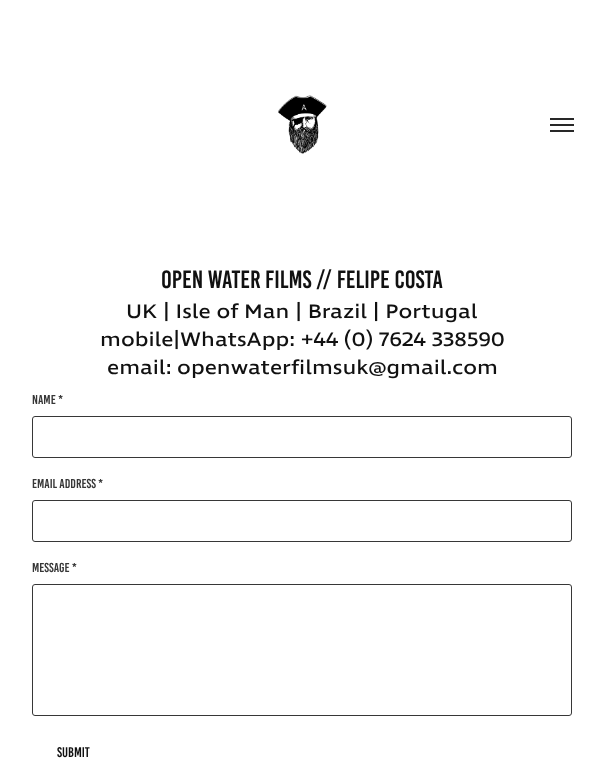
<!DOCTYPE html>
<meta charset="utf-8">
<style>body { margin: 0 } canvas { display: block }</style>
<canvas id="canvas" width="604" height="770"></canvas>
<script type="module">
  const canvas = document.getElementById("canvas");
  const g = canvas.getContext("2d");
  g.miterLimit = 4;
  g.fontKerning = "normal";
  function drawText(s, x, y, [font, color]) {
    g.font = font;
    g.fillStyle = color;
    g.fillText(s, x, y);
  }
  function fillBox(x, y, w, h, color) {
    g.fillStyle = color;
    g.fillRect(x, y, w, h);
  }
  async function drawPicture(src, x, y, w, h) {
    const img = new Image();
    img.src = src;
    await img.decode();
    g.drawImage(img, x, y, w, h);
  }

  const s1 = ["25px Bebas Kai", "#111111"];
  const s2 = ["500 20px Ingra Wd", "#111111"];
  const s3 = ["13px Bebas Kai", "#373737"];
  const s4 = ["14px Bebas Kai", "#111111"];

  fillBox(0, 0, 604, 770, "#FFFFFF");
  await drawPicture("pic1.png", 278, 95, 49, 59);
  fillBox(550, 118, 24, 2, "#282828");
  fillBox(550, 124, 24, 2, "#282828");
  fillBox(550, 130, 24, 2, "#282828");
  drawText("Open Water Films // Felipe Costa", 161, 288, s1);
  drawText("UK | Isle of Man | Brazil | Portugal", 126, 318, s2);
  drawText("mobile|WhatsApp: +44 (0) 7624 338590", 100, 346, s2);
  drawText("email: openwaterfilmsuk@gmail.com", 107, 374, s2);
  drawText("Name *", 32, 404, s3);
  g.beginPath();
  g.roundRect(32.5, 416.5, 539, 41, 2.5);
  g.strokeStyle = "#373737";
  g.stroke();
  drawText("Email Address *", 32, 488, s3);
  g.beginPath();
  g.roundRect(32.5, 500.5, 539, 41, 2.5);
  g.stroke();
  drawText("Message *", 32, 572, s3);
  g.beginPath();
  g.roundRect(32.5, 584.5, 539, 131, 2.5);
  g.stroke();
  drawText("Submit", 57, 757, s4);
</script>
